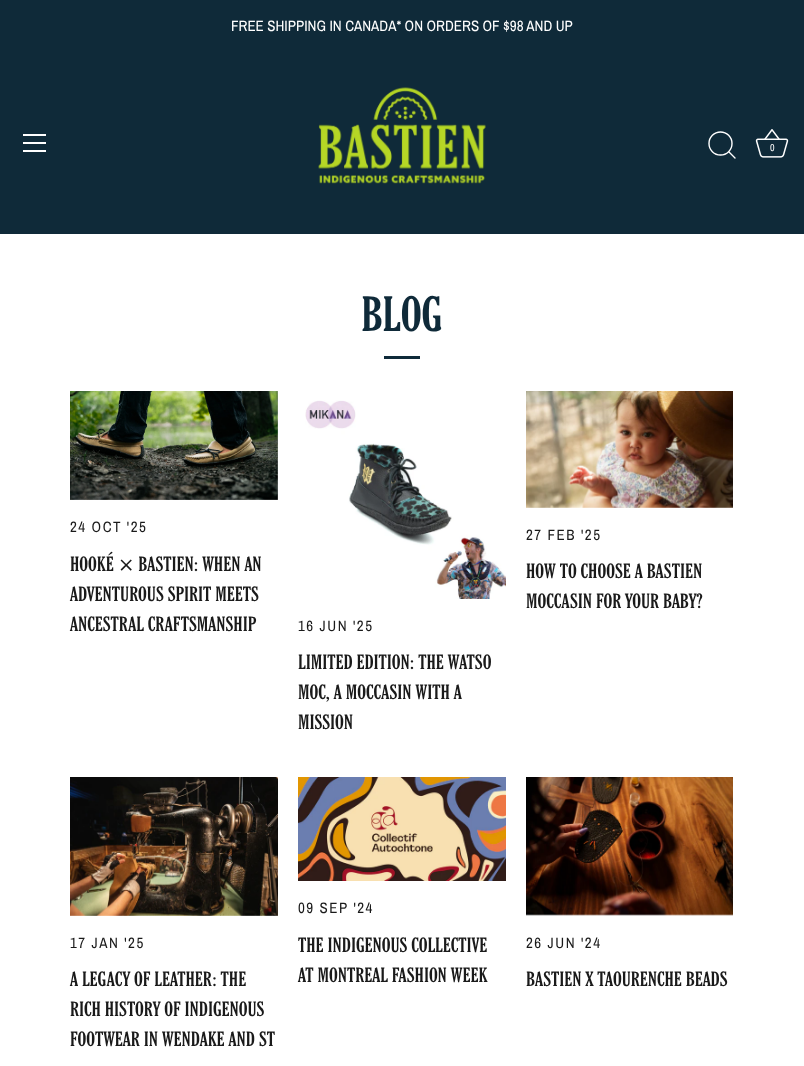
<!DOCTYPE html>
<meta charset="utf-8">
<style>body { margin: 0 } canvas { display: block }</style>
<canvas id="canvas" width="804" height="1066"></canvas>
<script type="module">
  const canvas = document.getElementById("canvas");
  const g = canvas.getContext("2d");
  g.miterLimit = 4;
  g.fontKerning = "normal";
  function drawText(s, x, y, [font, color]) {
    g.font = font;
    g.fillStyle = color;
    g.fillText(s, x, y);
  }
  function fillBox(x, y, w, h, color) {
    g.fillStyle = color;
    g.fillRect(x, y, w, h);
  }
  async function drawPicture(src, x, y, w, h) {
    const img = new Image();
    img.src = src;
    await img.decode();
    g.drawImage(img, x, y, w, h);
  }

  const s1 = ["15px Archivo Narrow", "#FFFFFF"];
  const s2 = ["10px Archivo Narrow", "#FFFFFF"];
  const s3 = ["bold 48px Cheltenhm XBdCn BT", "#0F2A39"];
  const s4 = ["15px Archivo Narrow", "#1A1A1A"];
  const s5 = ["bold 20px Cheltenhm XBdCn BT", "#1A1A1A"];

  fillBox(0, 0, 804, 1066, "#FFFFFF");
  fillBox(0, 0, 804, 234, "#0F2A39");
  drawText("FREE SHIPPING IN CANADA* ON ORDERS OF $98 AND UP", 231, 31, s1);
  fillBox(23, 134, 23, 2, "#FFFFFF");
  fillBox(23, 142, 23, 2, "#FFFFFF");
  fillBox(23, 150, 23, 2, "#FFFFFF");
  await drawPicture("pic1.png", 318, 87, 168, 97);
  g.beginPath();
  g.arc(720.5, 143.5, 11.5, 0, Math.PI * 2);
  g.strokeStyle = "#FFFFFF";
  g.lineWidth = 1.4;
  g.stroke();
  g.beginPath();
  g.moveTo(735, 158);
  g.lineTo(729, 152);
  g.lineCap = "round";
  g.lineJoin = "round";
  g.stroke();
  await drawPicture("pic2.png", 755, 129, 34, 29);
  drawText("0", 770, 151, s2);
  drawText("BLOG", 361, 331, s3);
  fillBox(384, 356, 36, 3, "#0F2A39");
  await drawPicture("pic3.png", 70, 391, 208, 109);
  g.letterSpacing = "1.5px";
  drawText("24 OCT '25", 70, 532, s4);
  g.letterSpacing = "0px";
  drawText("HOOKÉ × BASTIEN: WHEN AN", 70, 571, s5);
  drawText("ADVENTUROUS SPIRIT MEETS", 70, 601, s5);
  drawText("ANCESTRAL CRAFTSMANSHIP", 70, 631, s5);
  await drawPicture("pic4.png", 526, 391, 207, 117);
  g.letterSpacing = "1.5px";
  drawText("27 FEB '25", 526, 540, s4);
  g.letterSpacing = "0px";
  drawText("HOW TO CHOOSE A BASTIEN", 526, 578, s5);
  drawText("MOCCASIN FOR YOUR BABY?", 526, 608, s5);
  await drawPicture("pic5.png", 305, 400, 201, 199);
  g.letterSpacing = "1.5px";
  drawText("16 JUN '25", 298, 631, s4);
  g.letterSpacing = "0px";
  drawText("LIMITED EDITION: THE WATSO", 298, 669, s5);
  drawText("MOC, A MOCCASIN WITH A", 298, 699, s5);
  drawText("MISSION", 298, 729, s5);
  await drawPicture("pic6.png", 70, 777, 208, 139);
  g.letterSpacing = "1.5px";
  drawText("17 JAN '25", 70, 948, s4);
  g.letterSpacing = "0px";
  drawText("A LEGACY OF LEATHER: THE", 70, 986, s5);
  drawText("RICH HISTORY OF INDIGENOUS", 70, 1016, s5);
  drawText("FOOTWEAR IN WENDAKE AND ST", 70, 1046, s5);
  await drawPicture("pic7.png", 298, 777, 208, 104);
  g.letterSpacing = "1.5px";
  drawText("09 SEP '24", 298, 913, s4);
  g.letterSpacing = "0px";
  drawText("THE INDIGENOUS COLLECTIVE", 298, 952, s5);
  drawText("AT MONTREAL FASHION WEEK", 298, 982, s5);
  await drawPicture("pic8.png", 526, 777, 207, 139);
  g.letterSpacing = "1.5px";
  drawText("26 JUN '24", 526, 948, s4);
  g.letterSpacing = "0px";
  drawText("BASTIEN X TAOURENCHE BEADS", 526, 986, s5);
</script>
